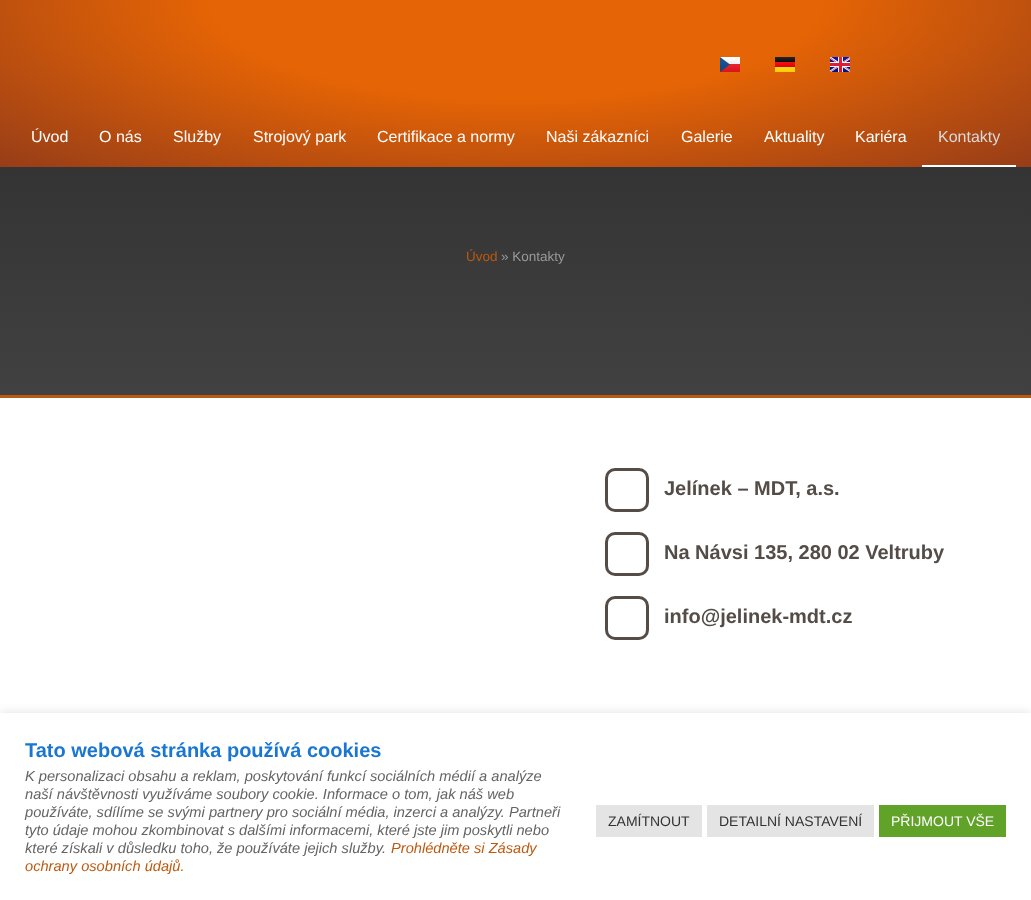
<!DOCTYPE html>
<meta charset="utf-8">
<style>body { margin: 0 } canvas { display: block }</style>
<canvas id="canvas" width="1031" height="900"></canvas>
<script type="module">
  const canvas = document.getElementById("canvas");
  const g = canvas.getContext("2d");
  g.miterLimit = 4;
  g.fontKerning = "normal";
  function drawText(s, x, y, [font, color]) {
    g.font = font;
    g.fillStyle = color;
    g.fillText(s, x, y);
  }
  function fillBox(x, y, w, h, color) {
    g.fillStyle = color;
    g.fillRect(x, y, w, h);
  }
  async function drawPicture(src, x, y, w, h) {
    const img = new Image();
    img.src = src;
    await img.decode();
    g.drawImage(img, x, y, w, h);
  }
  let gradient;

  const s1 = ["16px Liberation Sans", "#FFFFFF"];
  const s2 = ["16px Liberation Sans", "#DADADA"];
  const s3 = ["13.5px Liberation Sans", "#BC590F"];
  const s4 = ["13.5px Liberation Sans", "#999999"];
  const s5 = ["bold 20px Liberation Sans", "#544C47"];
  const s6 = ["bold 20px Liberation Sans", "#1976D2"];
  const s7 = ["italic 14.65px Liberation Sans", "#646464"];
  const s8 = ["italic 14.65px Liberation Sans", "#BC590F"];
  const s9 = ["14px Liberation Sans", "#333333"];
  const s10 = ["14px Liberation Sans", "#FFFFFF"];

  fillBox(0, 0, 1031, 900, "#FFFFFF");
  gradient = g.createRadialGradient(516, 0, 0, 516, 0, 729);
  gradient.addColorStop(0.42, "#E56405");
  gradient.addColorStop(1, "#973D18");
  g.fillStyle = gradient;
  g.beginPath();
  g.rect(0, 0, 1031, 167);
  g.save();
  g.clip();
  g.scale(1, 236 / 729);
  g.fillRect(0, 0, 1031, 2781);
  g.restore();
  await drawPicture("pic1.png", 720, 57, 20, 15);
  gradient = g.createLinearGradient(786, 57, 786, 62);
  gradient.addColorStop(0, "#262626");
  gradient.addColorStop(1, "#0D0D0D");
  g.fillStyle = gradient;
  g.fillRect(775, 57, 20, 5);
  gradient = g.createLinearGradient(786, 62, 786, 67);
  gradient.addColorStop(0, "#F01515");
  gradient.addColorStop(1, "#DE0000");
  g.fillStyle = gradient;
  g.fillRect(775, 62, 20, 5);
  gradient = g.createLinearGradient(786, 67, 786, 72);
  gradient.addColorStop(0, "#FFD521");
  gradient.addColorStop(1, "#FFCF00");
  g.fillStyle = gradient;
  g.fillRect(775, 67, 20, 5);
  await drawPicture("pic2.png", 830, 57, 20, 15);
  drawText("Úvod", 31, 142, s1);
  drawText("O nás", 99, 142, s1);
  drawText("Služby", 173, 142, s1);
  drawText("Strojový park", 253, 142, s1);
  drawText("Certifikace a normy", 377, 142, s1);
  drawText("Naši zákazníci", 546, 142, s1);
  drawText("Galerie", 681, 142, s1);
  drawText("Aktuality", 764, 142, s1);
  drawText("Kariéra", 855, 142, s1);
  drawText("Kontakty", 938, 142, s2);
  fillBox(922, 165, 94, 2, "#FFFFFF");
  gradient = g.createLinearGradient(516, 167, 516, 395);
  gradient.addColorStop(0, "#353434");
  gradient.addColorStop(1, "#414141");
  g.fillStyle = gradient;
  g.fillRect(0, 167, 1031, 228);
  fillBox(0, 395, 1031, 3, "#BC590F");
  drawText("Úvod", 466, 261, s3);
  drawText("» Kontakty", 501, 261, s4);
  g.beginPath();
  g.roundRect(606.5, 469.5, 41, 41, 8.5);
  g.strokeStyle = "#544C47";
  g.lineWidth = 3;
  g.stroke();
  drawText("Jelínek – MDT, a.s.", 664, 495, s5);
  g.beginPath();
  g.roundRect(606.5, 533.5, 41, 41, 8.5);
  g.stroke();
  drawText("Na Návsi 135, 280 02 Veltruby", 664, 559, s5);
  g.beginPath();
  g.roundRect(606.5, 597.5, 41, 41, 8.5);
  g.stroke();
  drawText("info@jelinek-mdt.cz", 664, 623, s5);
  g.fillStyle = "rgba(172, 171, 171, 0.3)";
  g.filter = "blur(5px)";
  g.beginPath();
  g.rect(0, 712, 1031, 187);
  g.fill();
  g.filter = "none";
  fillBox(0, 713, 1031, 187, "#FFFFFF");
  drawText("Tato webová stránka používá cookies", 25, 757, s6);
  drawText("K personalizaci obsahu a reklam, poskytování funkcí sociálních médií a analýze", 25, 781, s7);
  drawText("naší návštěvnosti využíváme soubory cookie. Informace o tom, jak náš web", 25, 799, s7);
  drawText("používáte, sdílíme se svými partnery pro sociální média, inzerci a analýzy. Partneři", 25, 817, s7);
  drawText("tyto údaje mohou zkombinovat s dalšími informacemi, které jste jim poskytli nebo", 25, 835, s7);
  drawText("které získali v důsledku toho, že používáte jejich služby.", 25, 853, s7);
  drawText("Prohlédněte si Zásady", 391, 853, s8);
  drawText("ochrany osobních údajů.", 25, 871, s8);
  fillBox(596, 805, 106, 32, "#E4E4E4");
  drawText("ZAMÍTNOUT", 608, 826, s9);
  fillBox(707, 805, 167, 32, "#E4E4E4");
  drawText("DETAILNÍ NASTAVENÍ", 719, 826, s9);
  fillBox(879, 805, 127, 32, "#61A229");
  drawText("PŘIJMOUT VŠE", 891, 826, s10);
</script>
